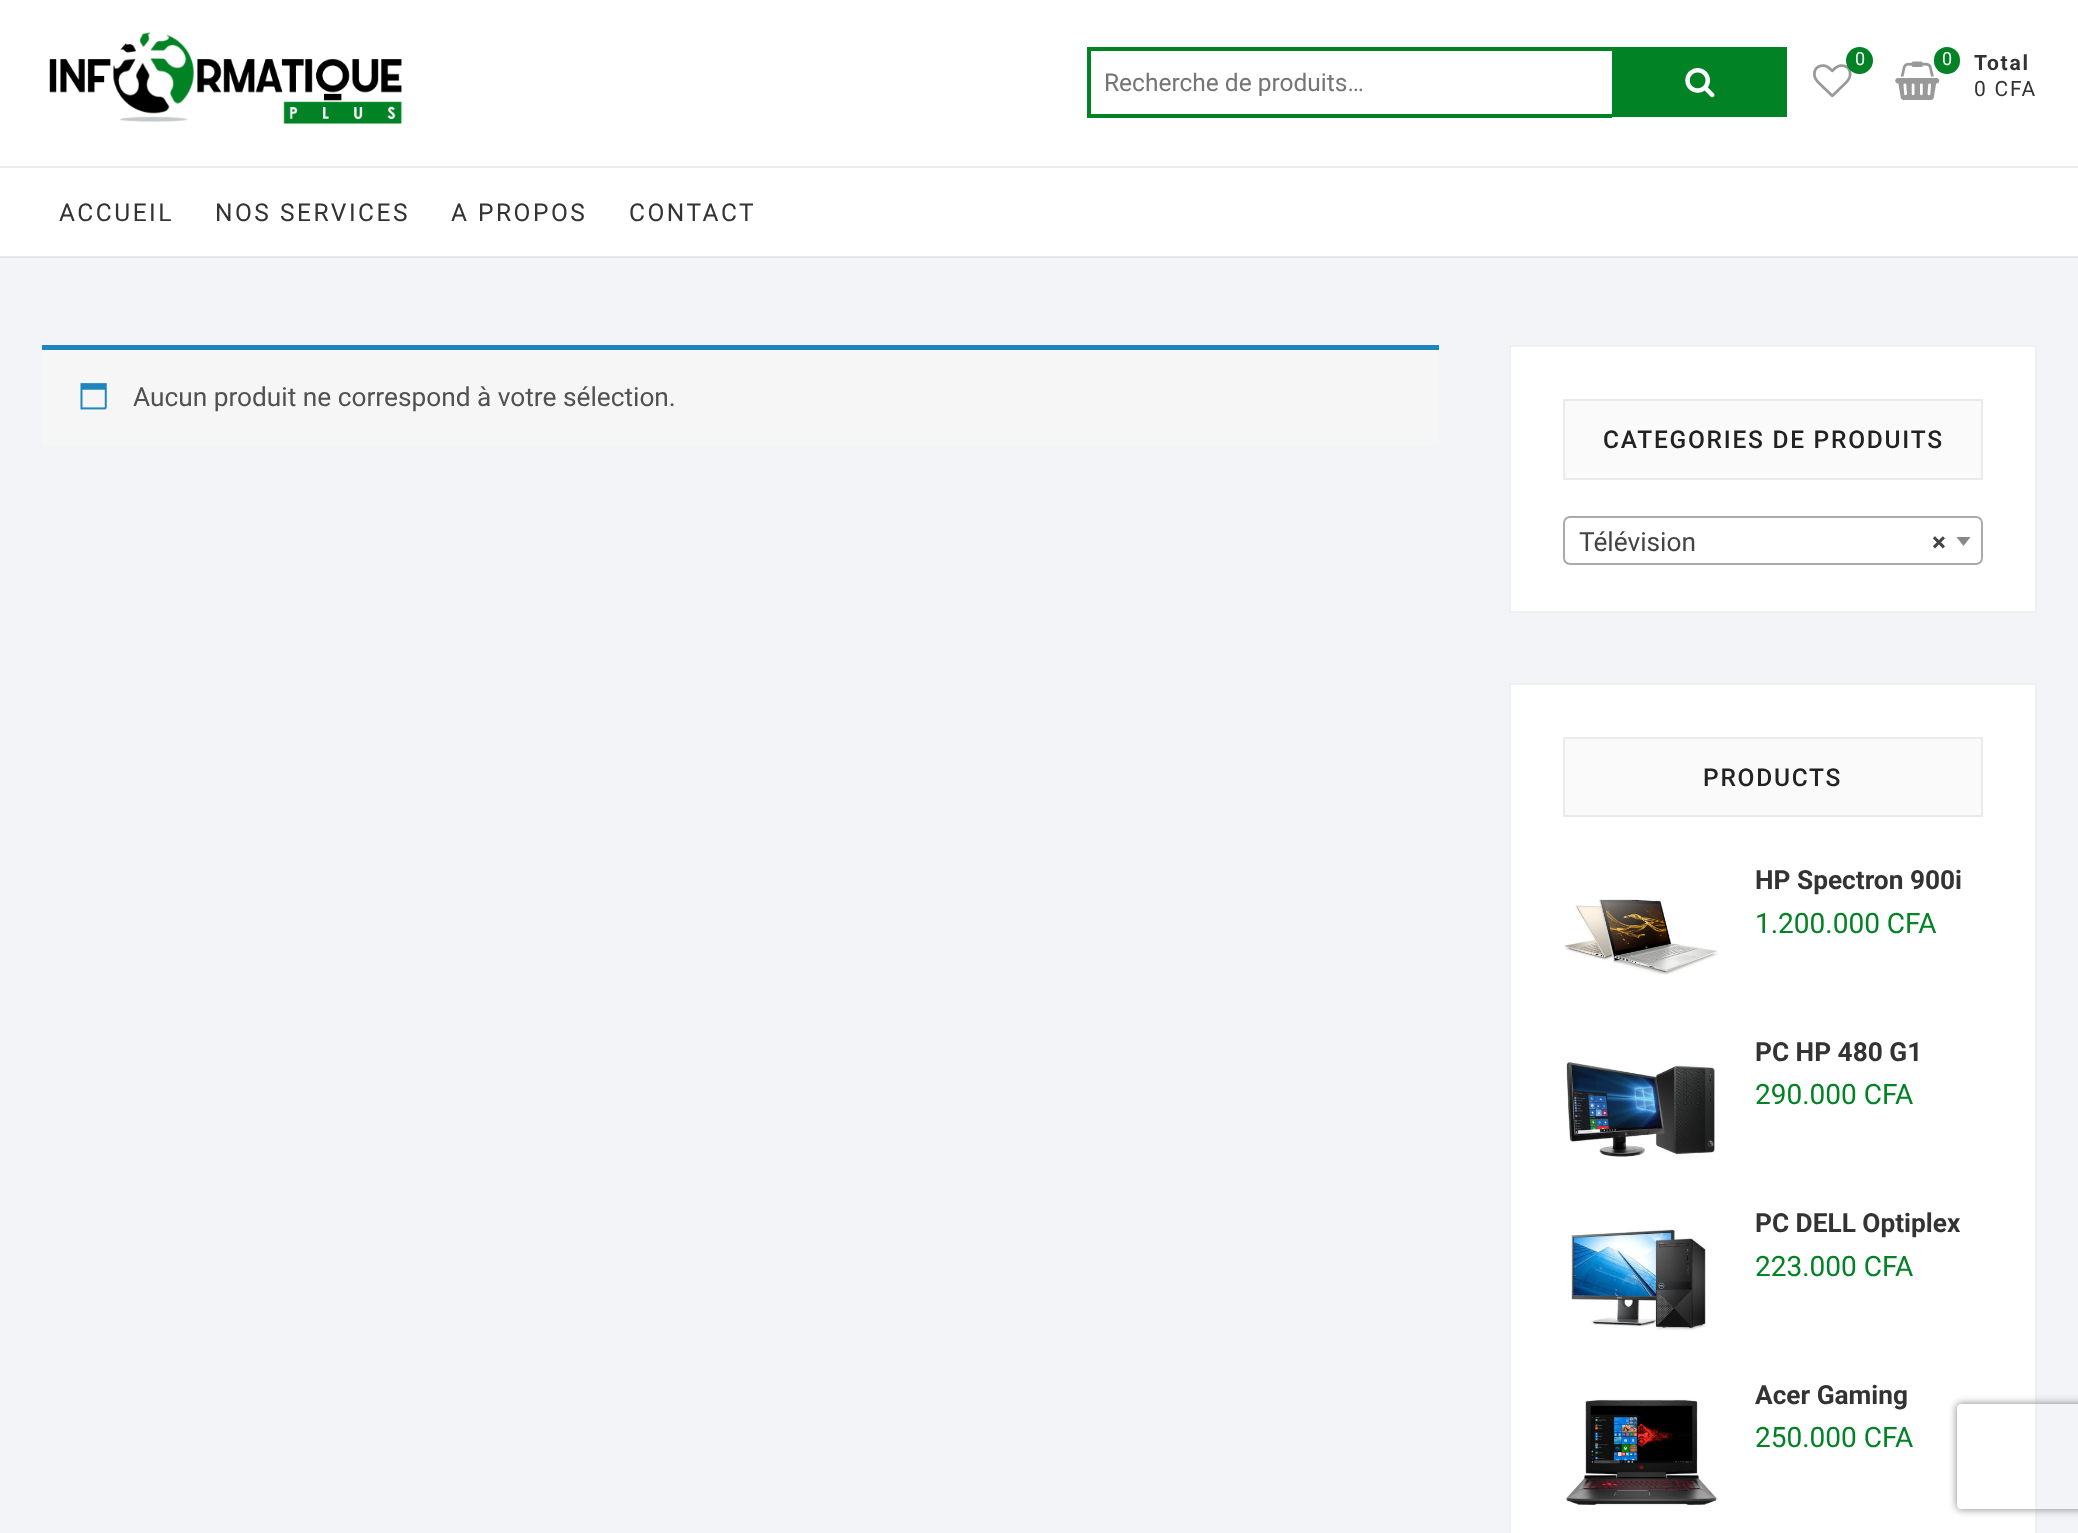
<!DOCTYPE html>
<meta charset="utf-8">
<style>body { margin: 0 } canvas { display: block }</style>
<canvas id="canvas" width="2078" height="1533"></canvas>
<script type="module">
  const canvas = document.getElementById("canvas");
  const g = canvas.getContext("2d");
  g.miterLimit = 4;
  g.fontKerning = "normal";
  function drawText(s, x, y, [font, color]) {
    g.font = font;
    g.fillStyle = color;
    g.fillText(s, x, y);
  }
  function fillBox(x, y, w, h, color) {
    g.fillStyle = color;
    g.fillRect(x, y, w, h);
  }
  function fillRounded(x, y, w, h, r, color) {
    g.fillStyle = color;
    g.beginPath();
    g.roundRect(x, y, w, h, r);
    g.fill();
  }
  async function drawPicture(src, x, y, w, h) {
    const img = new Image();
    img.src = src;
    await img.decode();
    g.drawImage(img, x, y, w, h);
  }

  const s1 = ["24.5px Roboto", "#757575"];
  const s2 = ["18px Roboto", "#FFFFFF"];
  const s3 = ["bold 21px Roboto", "#333333"];
  const s4 = ["21px Roboto", "#333333"];
  const s5 = ["24.5px Roboto", "#333333"];
  const s6 = ["26.25px Roboto", "#515151"];
  const s7 = ["500 24.5px Roboto", "#222222"];
  const s8 = ["26.25px Roboto", "#444444"];
  const s9 = ["bold 26.25px Roboto", "#444444"];
  const s10 = ["bold 26.25px Roboto", "#333333"];
  const s11 = ["28px Roboto", "#018225"];

  fillBox(0, 0, 2078, 1533, "#F3F4F8");
  fillBox(0, 257, 2078, 1, "#E0E0E4");
  fillBox(0, 0, 2078, 256, "#FFFFFF");
  fillBox(0, 256, 2078, 1, "#EBEBEB");
  await drawPicture("pic1.png", 49, 32, 353, 92);
  fillBox(1087, 47, 525, 4, "#018225");
  fillBox(1087, 114, 525, 4, "#018225");
  fillBox(1087, 47, 4, 70, "#018225");
  drawText("Recherche de produits…", 1104, 91, s1);
  fillBox(1612, 47, 175, 70, "#018225");
  await drawPicture("pic2.png", 1685, 68, 30, 30);
  await drawPicture("pic3.png", 1813, 64, 39, 34);
  g.beginPath();
  g.arc(1859.5, 60.5, 13.5, 0, Math.PI * 2);
  g.fill();
  drawText("0", 1855, 65, s2);
  await drawPicture("pic4.png", 1895, 61, 45, 39);
  fillRounded(1934, 47, 26, 27, 13, "#018225");
  drawText("0", 1942, 65, s2);
  g.letterSpacing = "1.75px";
  drawText("Total", 1974, 70, s3);
  drawText("0 CFA", 1974, 96, s4);
  fillBox(0, 166, 2078, 2, "#EBEBEB");
  g.letterSpacing = "2.5px";
  drawText("ACCUEIL", 59, 221, s5);
  drawText("NOS SERVICES", 215, 221, s5);
  drawText("A PROPOS", 451, 221, s5);
  drawText("CONTACT", 629, 221, s5);
  fillBox(42, 350, 1397, 95, "#F7F6F7");
  fillBox(42, 345, 1397, 5, "#1E85BE");
  await drawPicture("pic5.png", 80, 383, 27, 27);
  g.letterSpacing = "0px";
  drawText("Aucun produit ne correspond à votre sélection.", 133, 406, s6);
  g.fillStyle = "#FFFFFF";
  g.beginPath();
  g.rect(1510, 346, 526, 266);
  g.fill();
  g.strokeStyle = "#F0F0F0";
  g.lineWidth = 2;
  g.stroke();
  g.fillStyle = "#FAFAFA";
  g.beginPath();
  g.rect(1564, 400, 418, 79);
  g.fill();
  g.strokeStyle = "#EBEBEB";
  g.stroke();
  g.letterSpacing = "1.75px";
  drawText("CATEGORIES DE PRODUITS", 1603, 448, s7);
  g.beginPath();
  g.roundRect(1564, 517, 418, 47, 6);
  g.strokeStyle = "#AAAAAA";
  g.stroke();
  g.letterSpacing = "0px";
  drawText("Télévision", 1579, 551, s8);
  drawText("×", 1932, 551, s9);
  g.fillStyle = "#888888";
  g.beginPath();
  g.moveTo(1956.5, 537);
  g.lineTo(1970.5, 537);
  g.lineTo(1963.5, 546);
  g.closePath();
  g.fill();
  g.fillStyle = "#FFFFFF";
  g.beginPath();
  g.rect(1510, 684, 526, 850);
  g.fill();
  g.strokeStyle = "#F0F0F0";
  g.stroke();
  g.fillStyle = "#FAFAFA";
  g.beginPath();
  g.rect(1564, 738, 418, 78);
  g.fill();
  g.strokeStyle = "#EBEBEB";
  g.stroke();
  g.letterSpacing = "1.75px";
  drawText("PRODUCTS", 1703, 786, s7);
  g.letterSpacing = "0px";
  drawText("HP Spectron 900i", 1755, 889, s10);
  await drawPicture("pic6.png", 1563, 898, 155, 77);
  drawText("1.200.000 CFA", 1755, 933, s11);
  drawText("PC HP 480 G1", 1755, 1061, s10);
  await drawPicture("pic7.png", 1566, 1061, 149, 96);
  drawText("290.000 CFA", 1755, 1104, s11);
  drawText("PC DELL Optiplex", 1755, 1232, s10);
  await drawPicture("pic8.png", 1570, 1229, 137, 102);
  drawText("223.000 CFA", 1755, 1276, s11);
  await drawPicture("pic9.png", 1563, 1399, 155, 107);
  drawText("Acer Gaming", 1755, 1404, s10);
  drawText("250.000 CFA", 1755, 1447, s11);
  g.save();
  g.beginPath();
  g.moveTo(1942, 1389);
  g.lineTo(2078, 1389);
  g.lineTo(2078, 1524);
  g.lineTo(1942, 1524);
  g.closePath();
  g.moveTo(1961, 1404);
  g.lineTo(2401, 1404);
  g.bezierCurveTo(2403, 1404, 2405, 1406, 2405, 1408);
  g.lineTo(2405, 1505);
  g.bezierCurveTo(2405, 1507, 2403, 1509, 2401, 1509);
  g.lineTo(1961, 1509);
  g.bezierCurveTo(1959, 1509, 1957, 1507, 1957, 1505);
  g.lineTo(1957, 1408);
  g.bezierCurveTo(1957, 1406, 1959, 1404, 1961, 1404);
  g.closePath();
  g.clip("evenodd");
  g.fillStyle = "#808080";
  g.filter = "blur(4.5px)";
  g.beginPath();
  g.roundRect(1957, 1404, 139, 105, 4);
  g.fill();
  g.filter = "none";
  g.restore();
</script>
